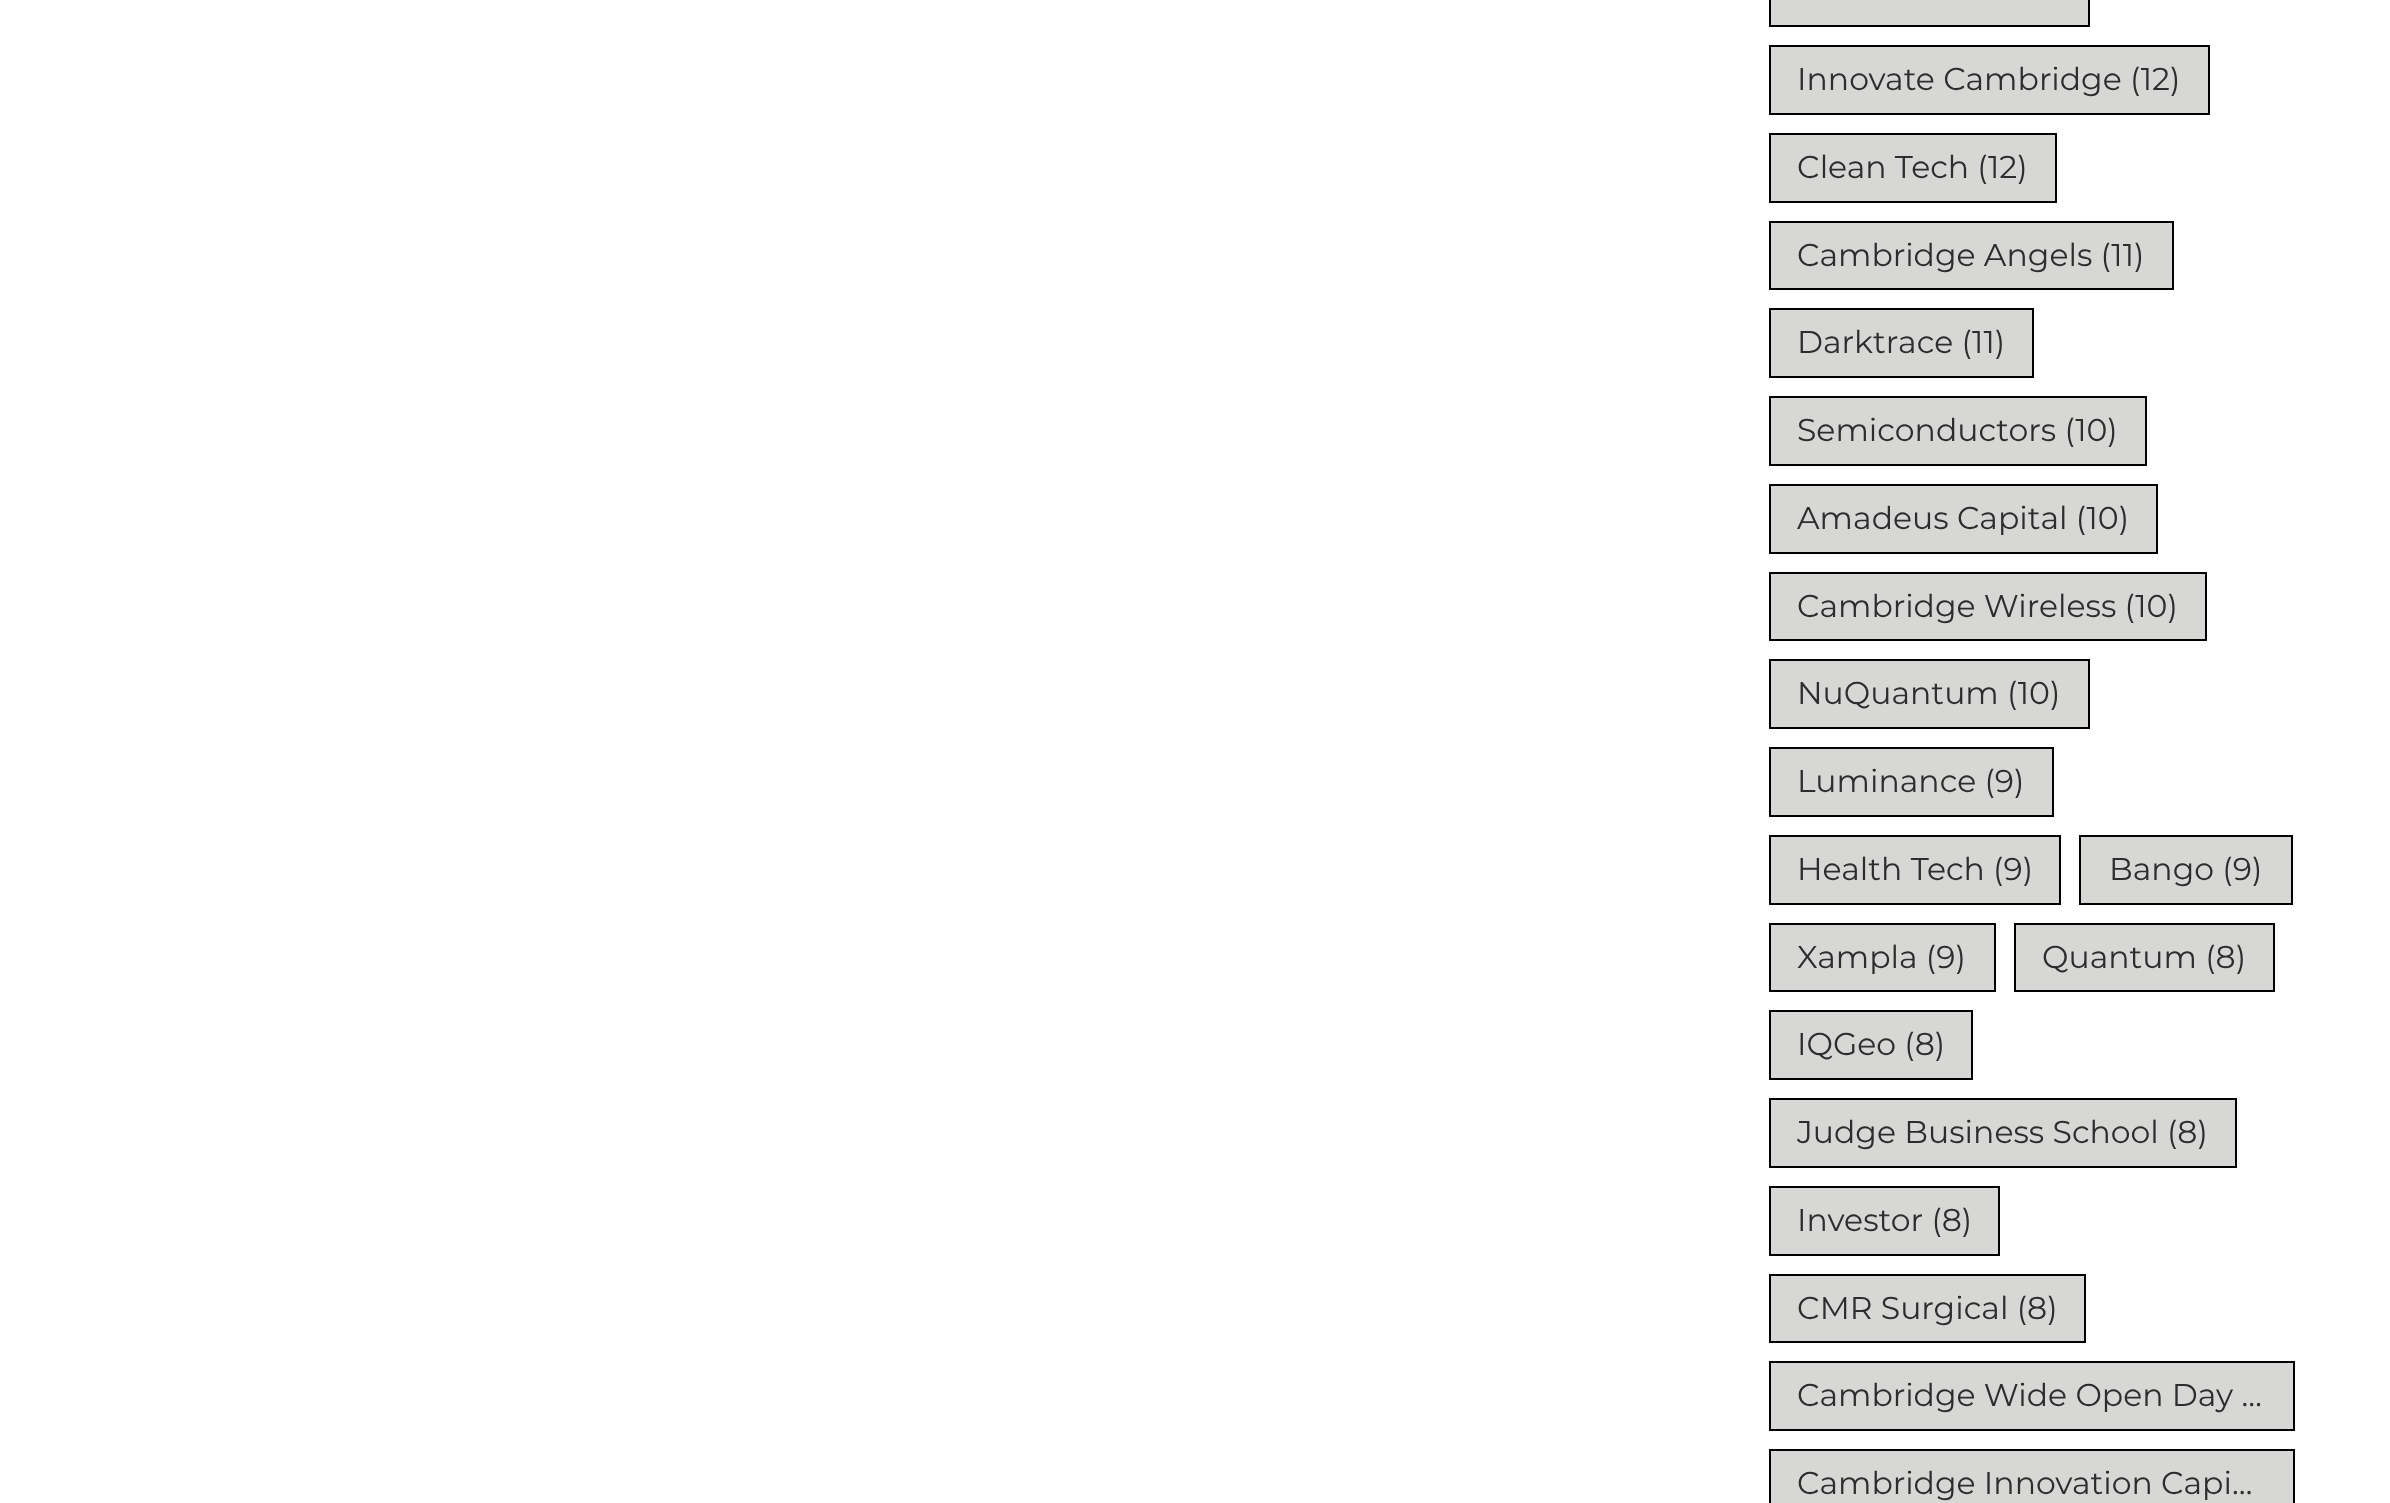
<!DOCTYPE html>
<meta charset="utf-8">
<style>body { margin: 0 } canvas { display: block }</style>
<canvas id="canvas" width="2390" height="1503"></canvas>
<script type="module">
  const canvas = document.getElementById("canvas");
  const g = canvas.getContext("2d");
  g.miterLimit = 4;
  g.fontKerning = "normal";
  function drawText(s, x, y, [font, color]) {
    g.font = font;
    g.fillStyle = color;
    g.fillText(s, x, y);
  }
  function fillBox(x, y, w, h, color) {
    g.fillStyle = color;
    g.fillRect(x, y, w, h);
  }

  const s1 = ["31.5px Montserrat", "#2D2D2D"];

  fillBox(0, 0, 2390, 1503, "#FFFFFF");
  g.fillStyle = "#D7D7D6";
  g.beginPath();
  g.rect(1770, -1, 319, 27);
  g.fill();
  g.strokeStyle = "#000000";
  g.lineWidth = 2;
  g.stroke();
  g.beginPath();
  g.rect(1770, 46, 439, 68);
  g.fill();
  g.stroke();
  drawText("Innovate Cambridge (12)", 1797, 90, s1);
  g.fillStyle = "#D7D7D6";
  g.beginPath();
  g.rect(1770, 134, 286, 68);
  g.fill();
  g.stroke();
  drawText("Clean Tech (12)", 1797, 178, s1);
  g.fillStyle = "#D7D7D6";
  g.beginPath();
  g.rect(1770, 222, 403, 67);
  g.fill();
  g.stroke();
  drawText("Cambridge Angels (11)", 1797, 266, s1);
  g.fillStyle = "#D7D7D6";
  g.beginPath();
  g.rect(1770, 309, 263, 68);
  g.fill();
  g.stroke();
  drawText("Darktrace (11)", 1797, 353, s1);
  g.fillStyle = "#D7D7D6";
  g.beginPath();
  g.rect(1770, 397, 376, 68);
  g.fill();
  g.stroke();
  drawText("Semiconductors (10)", 1797, 441, s1);
  g.fillStyle = "#D7D7D6";
  g.beginPath();
  g.rect(1770, 485, 387, 68);
  g.fill();
  g.stroke();
  drawText("Amadeus Capital (10)", 1797, 529, s1);
  g.fillStyle = "#D7D7D6";
  g.beginPath();
  g.rect(1770, 573, 436, 67);
  g.fill();
  g.stroke();
  drawText("Cambridge Wireless (10)", 1797, 617, s1);
  g.fillStyle = "#D7D7D6";
  g.beginPath();
  g.rect(1770, 660, 319, 68);
  g.fill();
  g.stroke();
  drawText("NuQuantum (10)", 1797, 704, s1);
  g.fillStyle = "#D7D7D6";
  g.beginPath();
  g.rect(1770, 748, 283, 68);
  g.fill();
  g.stroke();
  drawText("Luminance (9)", 1797, 792, s1);
  g.fillStyle = "#D7D7D6";
  g.beginPath();
  g.rect(1770, 836, 290, 68);
  g.fill();
  g.stroke();
  drawText("Health Tech (9)", 1797, 880, s1);
  g.fillStyle = "#D7D7D6";
  g.beginPath();
  g.rect(2080, 836, 212, 68);
  g.fill();
  g.stroke();
  drawText("Bango (9)", 2109, 880, s1);
  g.fillStyle = "#D7D7D6";
  g.beginPath();
  g.rect(1770, 924, 225, 67);
  g.fill();
  g.stroke();
  drawText("Xampla (9)", 1797, 968, s1);
  g.fillStyle = "#D7D7D6";
  g.beginPath();
  g.rect(2015, 924, 259, 67);
  g.fill();
  g.stroke();
  drawText("Quantum (8)", 2042, 968, s1);
  g.fillStyle = "#D7D7D6";
  g.beginPath();
  g.rect(1770, 1011, 202, 68);
  g.fill();
  g.stroke();
  drawText("IQGeo (8)", 1797, 1055, s1);
  g.fillStyle = "#D7D7D6";
  g.beginPath();
  g.rect(1770, 1099, 466, 68);
  g.fill();
  g.stroke();
  drawText("Judge Business School (8)", 1797, 1143, s1);
  g.fillStyle = "#D7D7D6";
  g.beginPath();
  g.rect(1770, 1187, 229, 68);
  g.fill();
  g.stroke();
  drawText("Investor (8)", 1797, 1231, s1);
  g.fillStyle = "#D7D7D6";
  g.beginPath();
  g.rect(1770, 1275, 315, 67);
  g.fill();
  g.stroke();
  drawText("CMR Surgical (8)", 1797, 1319, s1);
  g.fillStyle = "#D7D7D6";
  g.beginPath();
  g.rect(1770, 1362, 524, 68);
  g.fill();
  g.stroke();
  drawText("Cambridge Wide Open Day …", 1797, 1406, s1);
  g.fillStyle = "#D7D7D6";
  g.beginPath();
  g.rect(1770, 1450, 524, 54);
  g.fill();
  g.stroke();
  drawText("Cambridge Innovation Capi…", 1797, 1494, s1);
</script>
